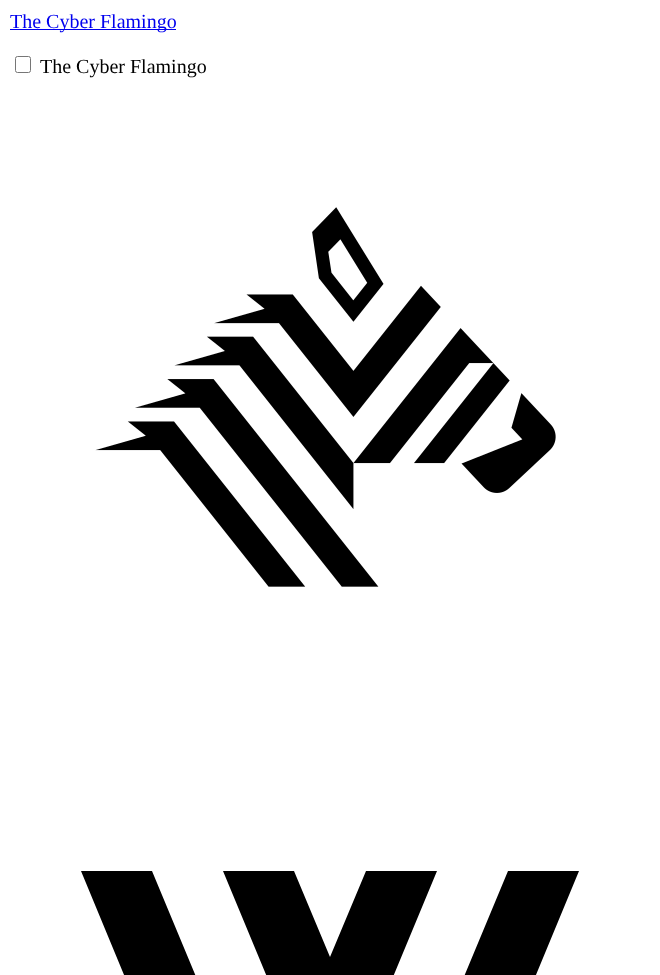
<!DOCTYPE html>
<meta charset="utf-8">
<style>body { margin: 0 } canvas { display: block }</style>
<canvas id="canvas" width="660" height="975"></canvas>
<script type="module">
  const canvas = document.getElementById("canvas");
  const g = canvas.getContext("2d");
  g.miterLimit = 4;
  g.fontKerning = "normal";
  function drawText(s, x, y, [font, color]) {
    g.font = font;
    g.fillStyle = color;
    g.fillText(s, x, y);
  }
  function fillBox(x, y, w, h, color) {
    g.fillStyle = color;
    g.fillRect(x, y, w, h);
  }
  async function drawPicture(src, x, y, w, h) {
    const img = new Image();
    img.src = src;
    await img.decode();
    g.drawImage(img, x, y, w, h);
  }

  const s1 = ["20px Liberation Serif", "#0000EE"];
  const s2 = ["20px Liberation Serif", "#000000"];

  fillBox(0, 0, 660, 975, "#FFFFFF");
  fillBox(10, 29, 166, 1, "#0000EE");
  drawText("The Cyber Flamingo", 10, 28, s1);
  g.beginPath();
  g.roundRect(15.5, 56.5, 15, 16, 2);
  g.strokeStyle = "#767676";
  g.stroke();
  drawText("The Cyber Flamingo", 40, 73, s2);
  await drawPicture("pic1.png", 95, 207, 461, 380);
  g.beginPath();
  g.moveTo(81, 871);
  g.lineTo(152, 871);
  g.lineTo(259, 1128);
  g.lineTo(294, 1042);
  g.lineTo(223, 871);
  g.lineTo(294, 871);
  g.lineTo(330, 957);
  g.lineTo(366, 871);
  g.lineTo(437, 871);
  g.lineTo(366, 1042);
  g.lineTo(401, 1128);
  g.lineTo(508, 871);
  g.lineTo(579, 871);
  g.lineTo(437, 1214);
  g.lineTo(366, 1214);
  g.lineTo(330, 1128);
  g.lineTo(294, 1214);
  g.lineTo(223, 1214);
  g.closePath();
  g.fill();
</script>
